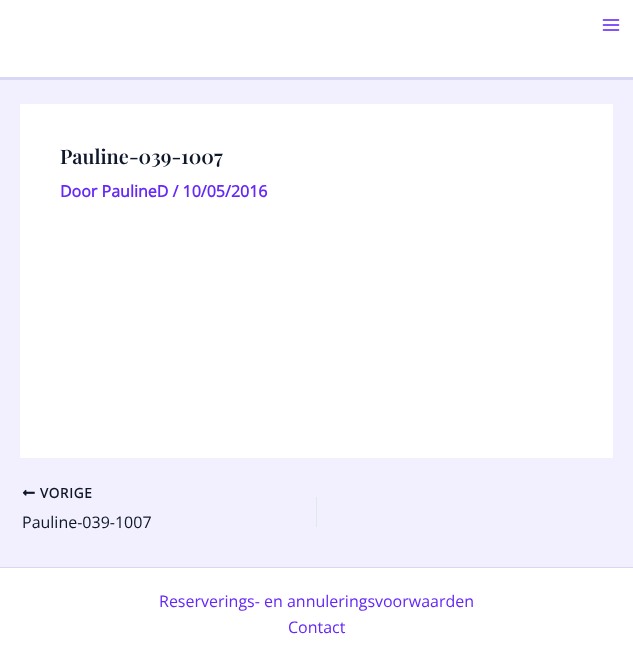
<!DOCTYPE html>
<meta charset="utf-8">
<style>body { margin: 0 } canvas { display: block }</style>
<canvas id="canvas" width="633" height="668"></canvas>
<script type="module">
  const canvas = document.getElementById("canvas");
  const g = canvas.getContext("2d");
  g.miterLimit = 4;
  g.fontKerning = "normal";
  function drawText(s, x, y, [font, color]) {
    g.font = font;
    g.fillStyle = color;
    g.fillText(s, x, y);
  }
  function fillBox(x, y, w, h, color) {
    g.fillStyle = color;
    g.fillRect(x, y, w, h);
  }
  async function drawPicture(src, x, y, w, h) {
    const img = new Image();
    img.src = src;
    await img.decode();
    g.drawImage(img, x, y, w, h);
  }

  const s1 = ["600 20px Playfair Display", "#0F172A"];
  const s2 = ["bold 16px Open Sans", "#6528F7"];
  const s3 = ["bold 13.5px Open Sans", "#0F172A"];
  const s4 = ["16px Open Sans", "#0F172A"];
  const s5 = ["16px Open Sans", "#6528F7"];

  fillBox(0, 0, 633, 668, "#F2F0FE");
  fillBox(0, 0, 633, 77, "#FFFFFF");
  fillBox(0, 77, 633, 3, "#D8D8F5");
  await drawPicture("pic1.png", 602, 19, 18, 12);
  fillBox(20, 104, 593, 354, "#FFFFFF");
  drawText("Pauline-039-1007", 60, 164, s1);
  drawText("Door PaulineD / 10/05/2016", 60, 197, s2);
  await drawPicture("pic2.png", 22, 489, 13, 7);
  g.letterSpacing = "0.75px";
  drawText("VORIGE", 40, 498, s3);
  g.letterSpacing = "0px";
  drawText("Pauline-039-1007", 22, 528, s4);
  fillBox(316, 497, 1, 30, "#E1E8ED");
  fillBox(0, 568, 633, 100, "#FFFFFF");
  fillBox(0, 567, 633, 1, "#D8D8F5");
  drawText("Reserverings- en annuleringsvoorwaarden", 159, 607, s5);
  drawText("Contact", 288, 633, s5);
</script>
